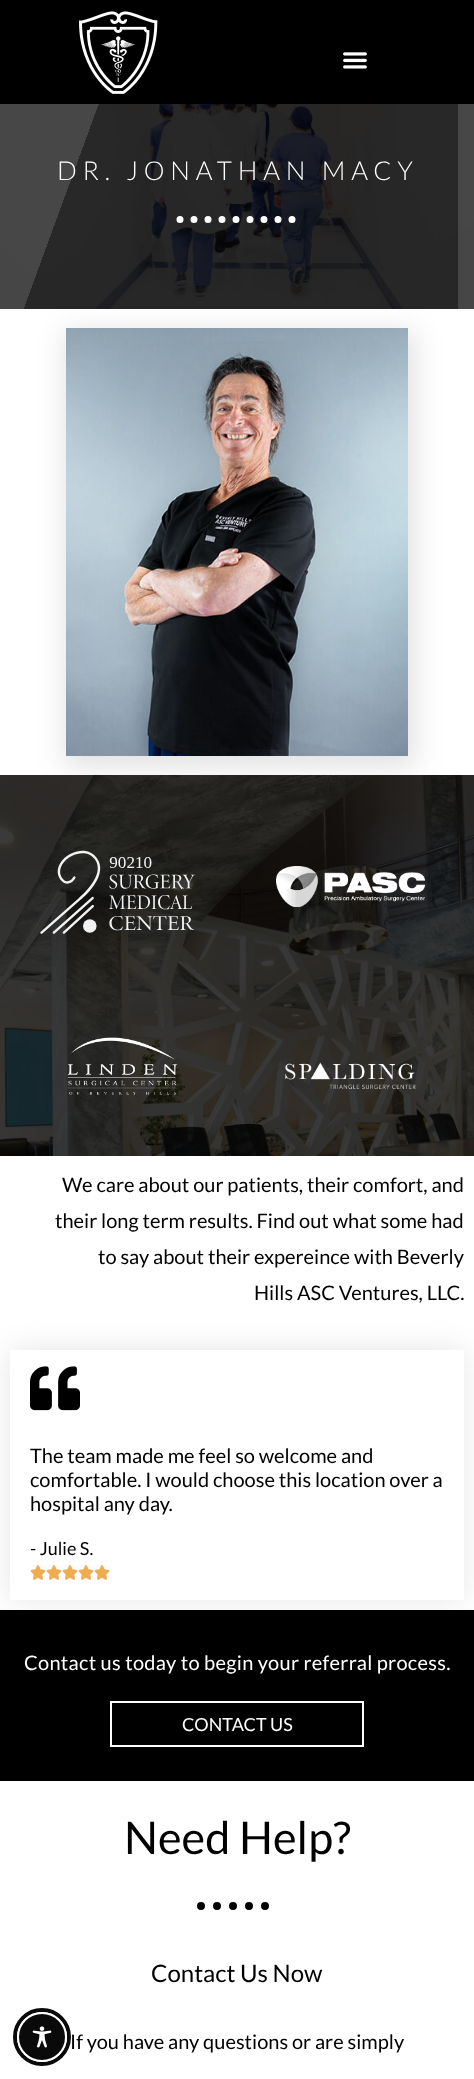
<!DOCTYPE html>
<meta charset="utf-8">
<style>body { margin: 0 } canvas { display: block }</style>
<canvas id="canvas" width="474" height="2079"></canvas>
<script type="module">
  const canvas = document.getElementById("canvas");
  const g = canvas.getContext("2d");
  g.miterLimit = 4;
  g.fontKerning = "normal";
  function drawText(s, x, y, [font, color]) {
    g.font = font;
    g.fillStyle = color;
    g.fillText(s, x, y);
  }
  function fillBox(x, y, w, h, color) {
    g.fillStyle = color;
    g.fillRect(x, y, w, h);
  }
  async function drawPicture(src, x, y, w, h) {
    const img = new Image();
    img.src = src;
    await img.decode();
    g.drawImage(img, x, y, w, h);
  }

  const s1 = ["300 26px Lato", "#FFFFFF"];
  const s2 = ["20px Lato", "#000000"];
  const s3 = ["18px Lato", "#000000"];
  const s4 = ["20px Lato", "#FFFFFF"];
  const s5 = ["18px Lato", "#FFFFFF"];
  const s6 = ["45px Lato", "#000000"];
  const s7 = ["24px Lato", "#000000"];

  fillBox(0, 0, 474, 2079, "#FFFFFF");
  fillBox(0, 0, 474, 104, "#000000");
  await drawPicture("pic1.png", 79, 11, 79, 83);
  await drawPicture("pic2.png", 343, 52, 24, 17);
  await drawPicture("pic3.png", 0, 104, 474, 205);
  g.letterSpacing = "5.75px";
  drawText("DR. JONATHAN MACY", 57, 180, s1);
  g.beginPath();
  g.moveTo(180, 219.5);
  g.lineTo(294, 219.5);
  g.strokeStyle = "#FFFFFF";
  g.lineWidth = 7;
  g.lineCap = "round";
  g.setLineDash([0, 14]);
  g.stroke();
  g.fillStyle = "rgba(0, 0, 0, 0.11)";
  g.filter = "blur(13.5px)";
  g.beginPath();
  g.rect(64, 330, 352, 438);
  g.fill();
  g.filter = "none";
  await drawPicture("pic4.png", 66, 328, 342, 428);
  await drawPicture("pic5.png", 0, 775, 474, 381);
  await drawPicture("pic6.png", 40, 850, 155, 84);
  await drawPicture("pic7.png", 276, 866, 149, 41);
  await drawPicture("pic8.png", 67, 1037, 111, 58);
  await drawPicture("pic9.png", 285, 1062, 131, 28);
  g.letterSpacing = "0px";
  drawText("We care about our patients, their comfort, and", 62, 1192, s2);
  drawText("their long term results. Find out what some had", 55, 1228, s2);
  drawText("to say about their expereince with Beverly", 98, 1264, s2);
  drawText("Hills ASC Ventures, LLC.", 254, 1300, s2);
  fillBox(0, 1610, 474, 171, "#000000");
  g.save();
  g.beginPath();
  g.moveTo(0, 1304);
  g.lineTo(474, 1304);
  g.lineTo(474, 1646);
  g.lineTo(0, 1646);
  g.closePath();
  g.moveTo(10, 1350);
  g.lineTo(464, 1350);
  g.lineTo(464, 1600);
  g.lineTo(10, 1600);
  g.closePath();
  g.clip("evenodd");
  g.fillStyle = "rgba(0, 0, 0, 0.1)";
  g.filter = "blur(15px)";
  g.beginPath();
  g.rect(10, 1350, 454, 250);
  g.fill();
  g.filter = "none";
  g.restore();
  await drawPicture("pic10.png", 30, 1366, 50, 45);
  drawText("The team made me feel so welcome and", 30, 1463, s2);
  drawText("comfortable. I would choose this location over a", 30, 1487, s2);
  drawText("hospital any day.", 30, 1511, s2);
  drawText("- Julie S.", 30, 1555, s3);
  await drawPicture("pic11.png", 30, 1565, 16, 15);
  await drawPicture("pic12.png", 30, 1565, 16, 15);
  await drawPicture("pic11.png", 46, 1565, 16, 15);
  await drawPicture("pic12.png", 46, 1565, 16, 15);
  await drawPicture("pic11.png", 62, 1565, 16, 15);
  await drawPicture("pic12.png", 62, 1565, 16, 15);
  await drawPicture("pic11.png", 78, 1565, 16, 15);
  await drawPicture("pic12.png", 78, 1565, 16, 15);
  await drawPicture("pic11.png", 94, 1565, 16, 15);
  await drawPicture("pic12.png", 94, 1565, 16, 15);
  g.letterSpacing = "0.3px";
  drawText("Contact us today to begin your referral process.", 24, 1670, s4);
  g.lineWidth = 2;
  g.setLineDash([]);
  g.strokeRect(111, 1702, 252, 44);
  g.letterSpacing = "0px";
  drawText("CONTACT US", 182, 1731, s5);
  g.beginPath();
  g.arc(42, 2037, 27, 0, Math.PI * 2);
  g.strokeStyle = "#0A0A0A";
  g.lineWidth = 4;
  g.stroke();
  g.fillStyle = "#0A0A0A";
  g.beginPath();
  g.arc(42, 2037, 24, 0, Math.PI * 2);
  g.fill();
  g.strokeStyle = "#FFFFFF";
  g.lineWidth = 2;
  g.stroke();
  await drawPicture("pic13.png", 32, 2026, 20, 22);
  drawText("Need Help?", 124, 1854, s6);
  g.beginPath();
  g.moveTo(201, 1906);
  g.lineTo(273, 1906);
  g.strokeStyle = "#000000";
  g.lineWidth = 8;
  g.setLineDash([0, 16]);
  g.stroke();
  drawText("Contact Us Now", 151, 1982, s7);
  drawText("If you have any questions or are simply", 70, 2049, s2);
</script>
